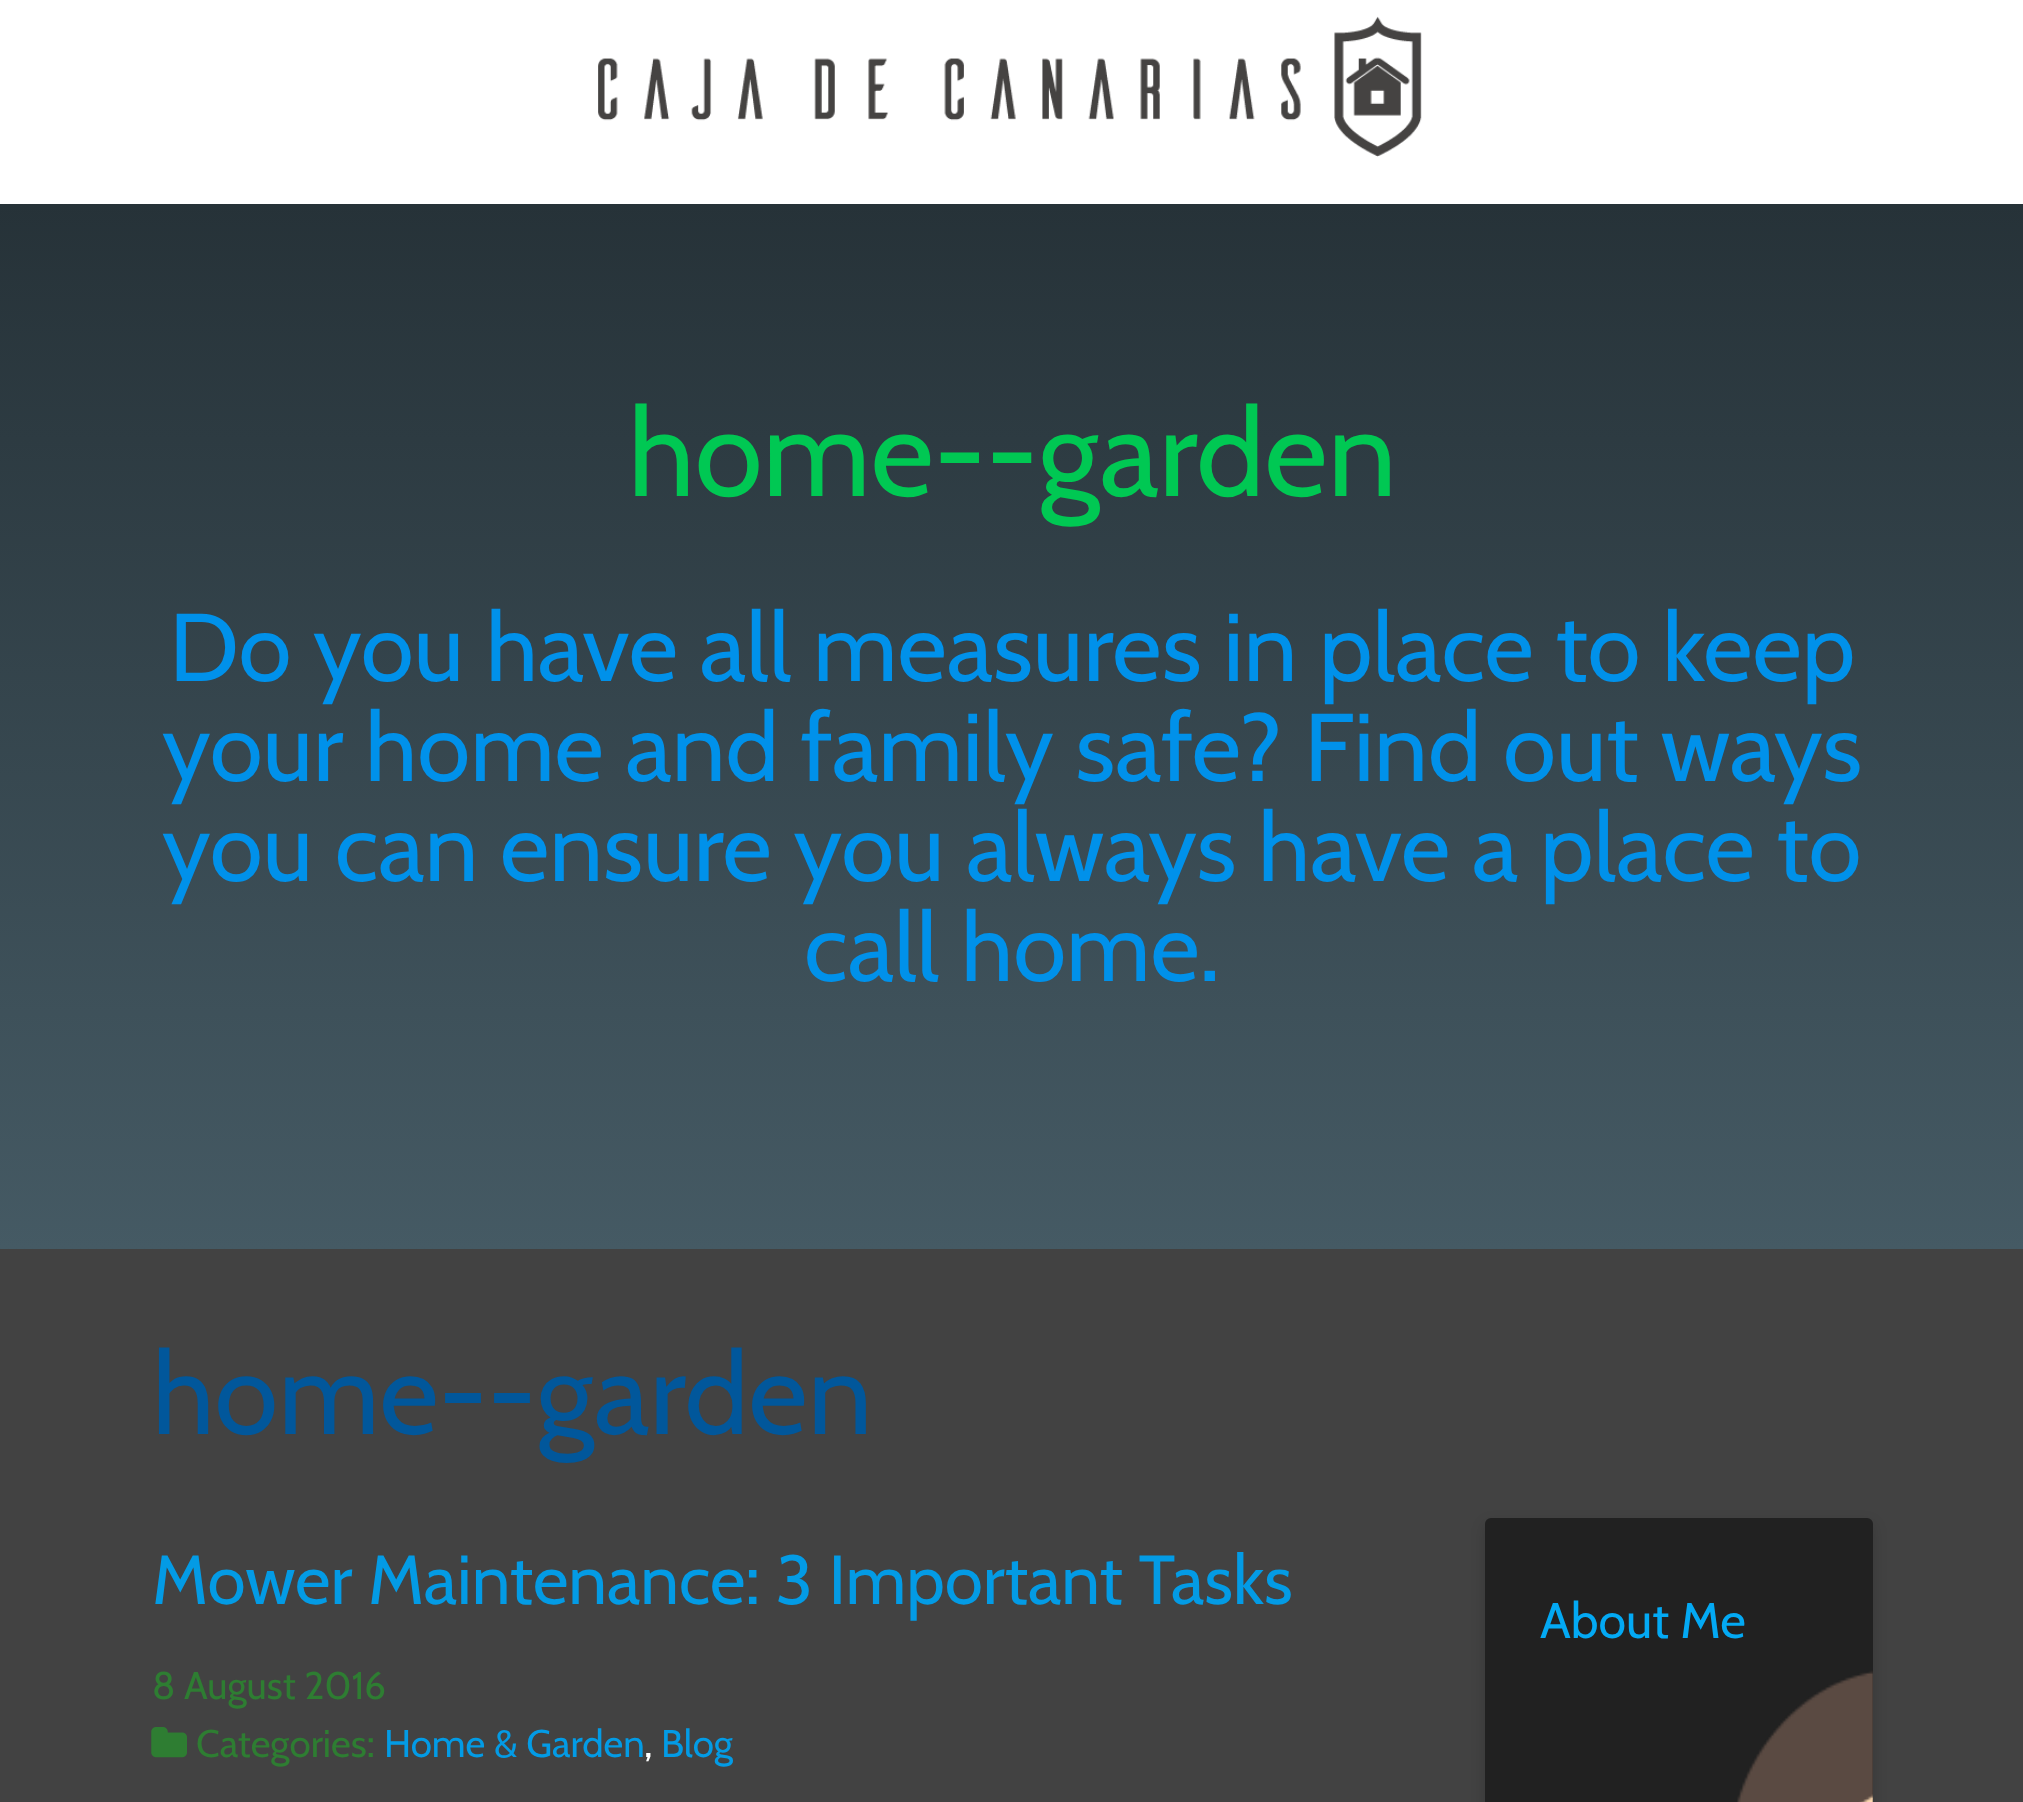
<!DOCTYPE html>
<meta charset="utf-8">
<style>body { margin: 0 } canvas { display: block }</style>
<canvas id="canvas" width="2023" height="1802"></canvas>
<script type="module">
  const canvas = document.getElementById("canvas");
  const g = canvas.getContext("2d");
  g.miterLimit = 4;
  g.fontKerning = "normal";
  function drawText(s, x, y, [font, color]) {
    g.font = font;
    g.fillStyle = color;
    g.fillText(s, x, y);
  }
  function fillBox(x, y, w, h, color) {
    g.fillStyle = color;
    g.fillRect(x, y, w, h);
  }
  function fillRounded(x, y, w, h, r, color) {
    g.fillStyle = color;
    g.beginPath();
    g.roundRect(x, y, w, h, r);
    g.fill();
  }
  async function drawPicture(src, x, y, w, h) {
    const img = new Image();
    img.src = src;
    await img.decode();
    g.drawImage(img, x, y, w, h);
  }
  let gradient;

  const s1 = ["123.25px Cabin", "#00C853"];
  const s2 = ["96.25px Cabin", "#0091EA"];
  const s3 = ["115.5px Cabin", "#01579B"];
  const s4 = ["69.25px Cabin", "#039BE5"];
  const s5 = ["38.5px Cabin", "#2E7D32"];
  const s6 = ["38.5px Cabin", "#039BE5"];
  const s7 = ["38.5px Cabin", "#FFFFFF"];
  const s8 = ["50px Cabin", "#03A9F4"];

  fillBox(0, 0, 2023, 1802, "#FFFFFF");
  await drawPicture("pic1.png", 598, 16, 824, 141);
  gradient = g.createLinearGradient(1012, 203, 1012, 1249);
  gradient.addColorStop(0, "#263238");
  gradient.addColorStop(1, "#455A64");
  g.fillStyle = gradient;
  g.fillRect(0, 204, 2023, 1045);
  drawText("home--garden", 628, 496, s1);
  drawText("Do you have all measures in place to keep", 169, 681, s2);
  drawText("your home and family safe? Find out ways", 162, 781, s2);
  drawText("you can ensure you always have a place to", 162, 881, s2);
  drawText("call home.", 804, 981, s2);
  fillBox(0, 1249, 2023, 553, "#424242");
  drawText("home--garden", 152, 1434, s3);
  drawText("Mower Maintenance: 3 Important Tasks", 152, 1604, s4);
  drawText("8 August 2016", 152, 1699, s5);
  await drawPicture("pic2.png", 151, 1727, 36, 31);
  drawText("Categories:", 196, 1757, s5);
  drawText("Home & Garden", 384, 1757, s6);
  drawText(",", 644, 1757, s7);
  drawText("Blog", 661, 1757, s6);
  g.fillStyle = "rgba(0, 0, 0, 0.16)";
  g.filter = "blur(7px)";
  g.beginPath();
  g.roundRect(1485, 1524, 388, 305, 6);
  g.fill();
  g.filter = "none";
  fillRounded(1485, 1518, 388, 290, 6, "#212121");
  drawText("About Me", 1540, 1638, s8);
  await drawPicture("pic3.png", 1737, 1670, 136, 132);
</script>
